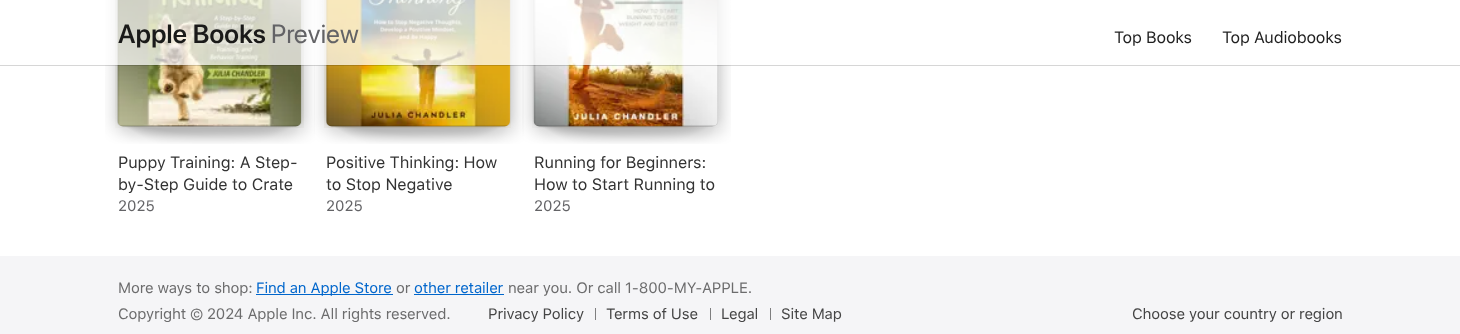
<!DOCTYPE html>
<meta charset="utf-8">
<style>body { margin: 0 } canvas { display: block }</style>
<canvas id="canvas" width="1460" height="334"></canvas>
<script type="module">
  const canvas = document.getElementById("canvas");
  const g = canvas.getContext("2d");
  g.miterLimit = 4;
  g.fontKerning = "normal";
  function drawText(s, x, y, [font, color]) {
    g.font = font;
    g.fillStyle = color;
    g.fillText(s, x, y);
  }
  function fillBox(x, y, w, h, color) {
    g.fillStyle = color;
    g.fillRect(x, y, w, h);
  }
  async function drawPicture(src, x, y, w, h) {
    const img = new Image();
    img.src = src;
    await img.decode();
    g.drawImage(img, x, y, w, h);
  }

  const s1 = ["600 26.25px SF Pro Display", "#1A1A19"];
  const s2 = ["26.25px SF Pro Display", "#636366"];
  const s3 = ["16.25px SF Pro Text", "#1F1F1F"];
  const s4 = ["16.25px SF Pro Text", "#333333"];
  const s5 = ["15px SF Pro Text", "#636366"];
  const s6 = ["15px SF Pro Text", "#6C6C6D"];
  const s7 = ["15px SF Pro Text", "#0066CC"];
  const s8 = ["15px SF Pro Text", "#454545"];

  fillBox(0, 0, 1460, 334, "#F5F5F7");
  fillBox(0, 0, 1460, 256, "#FFFFFF");
  await drawPicture("pic1.png", 105, 0, 210, 144);
  await drawPicture("pic2.png", 115, 0, 189, 128);
  await drawPicture("pic3.png", 117, 0, 185, 127);
  await drawPicture("pic4.png", 117, 0, 184, 127);
  await drawPicture("pic5.png", 314, 0, 210, 144);
  await drawPicture("pic6.png", 324, 0, 187, 128);
  await drawPicture("pic7.png", 326, 0, 184, 127);
  await drawPicture("pic8.png", 326, 0, 184, 127);
  await drawPicture("pic9.png", 522, 0, 209, 144);
  await drawPicture("pic10.png", 532, 0, 188, 128);
  await drawPicture("pic11.png", 533, 0, 185, 127);
  await drawPicture("pic12.png", 533, 0, 182, 127);
  fillBox(105, 0, 626, 65, "rgba(255, 255, 255, 0.72)");
  fillBox(0, 65, 1460, 1, "rgba(0, 0, 0, 0.16)");
  g.letterSpacing = "0.25px";
  drawText("Apple Books", 118, 43, s1);
  drawText("Preview", 271, 43, s2);
  g.letterSpacing = "-0.2px";
  drawText("Top Books", 1114, 43, s3);
  drawText("Top Audiobooks", 1222, 43, s3);
  g.letterSpacing = "-0.1px";
  drawText("Puppy Training: A Step-", 118, 168, s4);
  drawText("by-Step Guide to Crate", 118, 190, s4);
  g.letterSpacing = "0px";
  drawText("2025", 118, 211, s5);
  g.letterSpacing = "-0.1px";
  drawText("Positive Thinking: How", 326, 168, s4);
  drawText("to Stop Negative", 326, 190, s4);
  g.letterSpacing = "0px";
  drawText("2025", 326, 211, s5);
  g.letterSpacing = "-0.1px";
  drawText("Running for Beginners:", 534, 168, s4);
  drawText("How to Start Running to", 534, 190, s4);
  g.letterSpacing = "0px";
  drawText("2025", 534, 211, s5);
  g.letterSpacing = "-0.15px";
  drawText("More ways to shop:", 118, 293, s6);
  fillBox(256, 294, 137, 1, "#0066CC");
  drawText("Find an Apple Store", 256, 293, s7);
  drawText("or", 396, 293, s6);
  drawText("other retailer", 414, 293, s7);
  fillBox(414, 294, 90, 1, "#0066CC");
  drawText("near you. Or call 1-800-MY-APPLE.", 508, 293, s6);
  drawText("Copyright © 2024 Apple Inc. All rights reserved.", 118, 319, s6);
  drawText("Privacy Policy", 488, 319, s8);
  fillBox(595, 308, 1, 12, "#7F7F80");
  drawText("Terms of Use", 606, 319, s8);
  fillBox(710, 308, 1, 12, "#7F7F80");
  drawText("Legal", 721, 319, s8);
  fillBox(770, 308, 1, 12, "#7F7F80");
  drawText("Site Map", 781, 319, s8);
  drawText("Choose your country or region", 1132, 319, s8);
</script>
